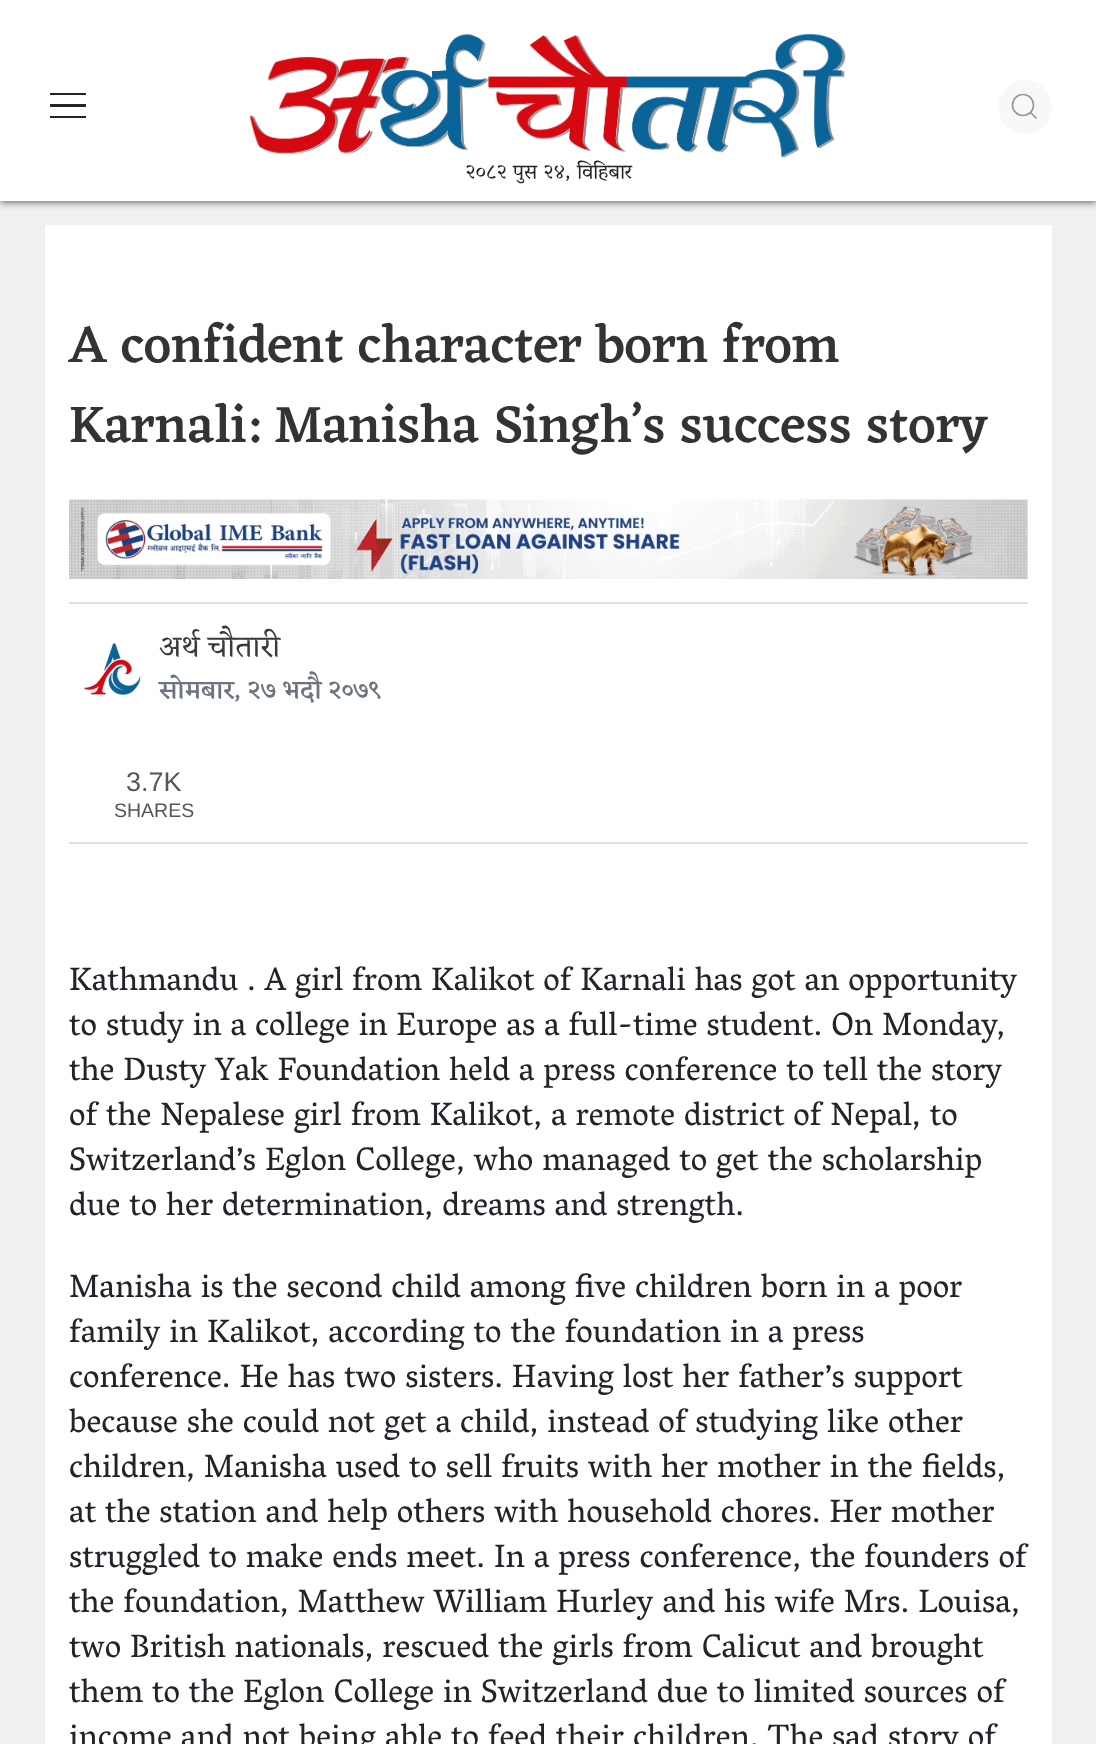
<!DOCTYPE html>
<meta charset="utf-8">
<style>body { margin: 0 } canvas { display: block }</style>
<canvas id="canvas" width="1096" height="1744"></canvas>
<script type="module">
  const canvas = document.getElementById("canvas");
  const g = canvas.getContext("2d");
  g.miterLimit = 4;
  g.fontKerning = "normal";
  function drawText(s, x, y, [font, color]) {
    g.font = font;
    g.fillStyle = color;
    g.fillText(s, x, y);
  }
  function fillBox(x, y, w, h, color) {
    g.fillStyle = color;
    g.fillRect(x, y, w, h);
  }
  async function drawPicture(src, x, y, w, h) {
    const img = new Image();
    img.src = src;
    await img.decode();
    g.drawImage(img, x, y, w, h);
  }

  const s1 = ["21px Vesper Libre", "#212529"];
  const s2 = ["500 53.5px Eczar", "#333333"];
  const s3 = ["30px Eczar", "#3A3A3A"];
  const s4 = ["500 25.5px Eczar", "#6C757D"];
  const s5 = ["27px Liberation Sans", "#555555"];
  const s6 = ["19.5px Liberation Sans", "#555555"];
  const s7 = ["33px Vesper Libre", "#212529"];

  fillBox(0, 0, 1096, 1744, "#F0F0F0");
  g.fillStyle = "#333333";
  g.filter = "blur(4.5px)";
  g.beginPath();
  g.rect(0, 0, 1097, 201);
  g.fill();
  g.filter = "none";
  fillBox(0, 0, 1096, 201, "#FFFFFF");
  fillBox(50, 93, 36, 2, "#212529");
  fillBox(50, 104, 36, 3, "#212529");
  fillBox(50, 116, 36, 2, "#212529");
  g.fillStyle = "#F8F8F8";
  g.beginPath();
  g.arc(1025, 107, 27, 0, Math.PI * 2);
  g.fill();
  g.beginPath();
  g.arc(1023, 105, 10.5, 0, Math.PI * 2);
  g.strokeStyle = "#999999";
  g.lineWidth = 1.7;
  g.stroke();
  g.beginPath();
  g.moveTo(1030.5, 112.5);
  g.lineTo(1036.5, 118.5);
  g.closePath();
  g.stroke();
  await drawPicture("pic1.png", 249, 33, 597, 125);
  g.wordSpacing = "0.5px";
  drawText("२०८२ पुस २४, विहिबार", 465, 178, s1);
  fillBox(45, 225, 1007, 1519, "#FFFFFF");
  g.wordSpacing = "0px";
  drawText("A confident character born from", 69, 362, s2);
  drawText("Karnali: Manisha Singh’s success story", 69, 442, s2);
  await drawPicture("pic2.png", 69, 499, 959, 80);
  fillBox(69, 602, 959, 2, "#DEE2E6");
  fillBox(69, 842, 959, 2, "#DEE2E6");
  await drawPicture("pic3.png", 83, 643, 58, 52);
  drawText("अर्थ चाैतारी", 159, 656, s3);
  drawText("सोमबार, २७ भदाै २०७९", 159, 698, s4);
  drawText("3.7K", 126, 791, s5);
  drawText("SHARES", 114, 817, s6);
  drawText("Kathmandu . A girl from Kalikot of Karnali has got an opportunity", 69, 990, s7);
  drawText("to study in a college in Europe as a full-time student. On Monday,", 69, 1035, s7);
  drawText("the Dusty Yak Foundation held a press conference to tell the story", 69, 1080, s7);
  drawText("of the Nepalese girl from Kalikot, a remote district of Nepal, to", 69, 1125, s7);
  drawText("Switzerland’s Eglon College, who managed to get the scholarship", 69, 1170, s7);
  drawText("due to her determination, dreams and strength.", 69, 1215, s7);
  drawText("Manisha is the second child among five children born in a poor", 69, 1297, s7);
  drawText("family in Kalikot, according to the foundation in a press", 69, 1342, s7);
  drawText("conference. He has two sisters. Having lost her father’s support", 69, 1387, s7);
  drawText("because she could not get a child, instead of studying like other", 69, 1432, s7);
  drawText("children, Manisha used to sell fruits with her mother in the fields,", 69, 1477, s7);
  drawText("at the station and help others with household chores. Her mother", 69, 1522, s7);
  drawText("struggled to make ends meet. In a press conference, the founders of", 69, 1567, s7);
  drawText("the foundation, Matthew William Hurley and his wife Mrs. Louisa,", 69, 1612, s7);
  drawText("two British nationals, rescued the girls from Calicut and brought", 69, 1657, s7);
  drawText("them to the Eglon College in Switzerland due to limited sources of", 69, 1702, s7);
  drawText("income and not being able to feed their children. The sad story of", 69, 1747, s7);
</script>
